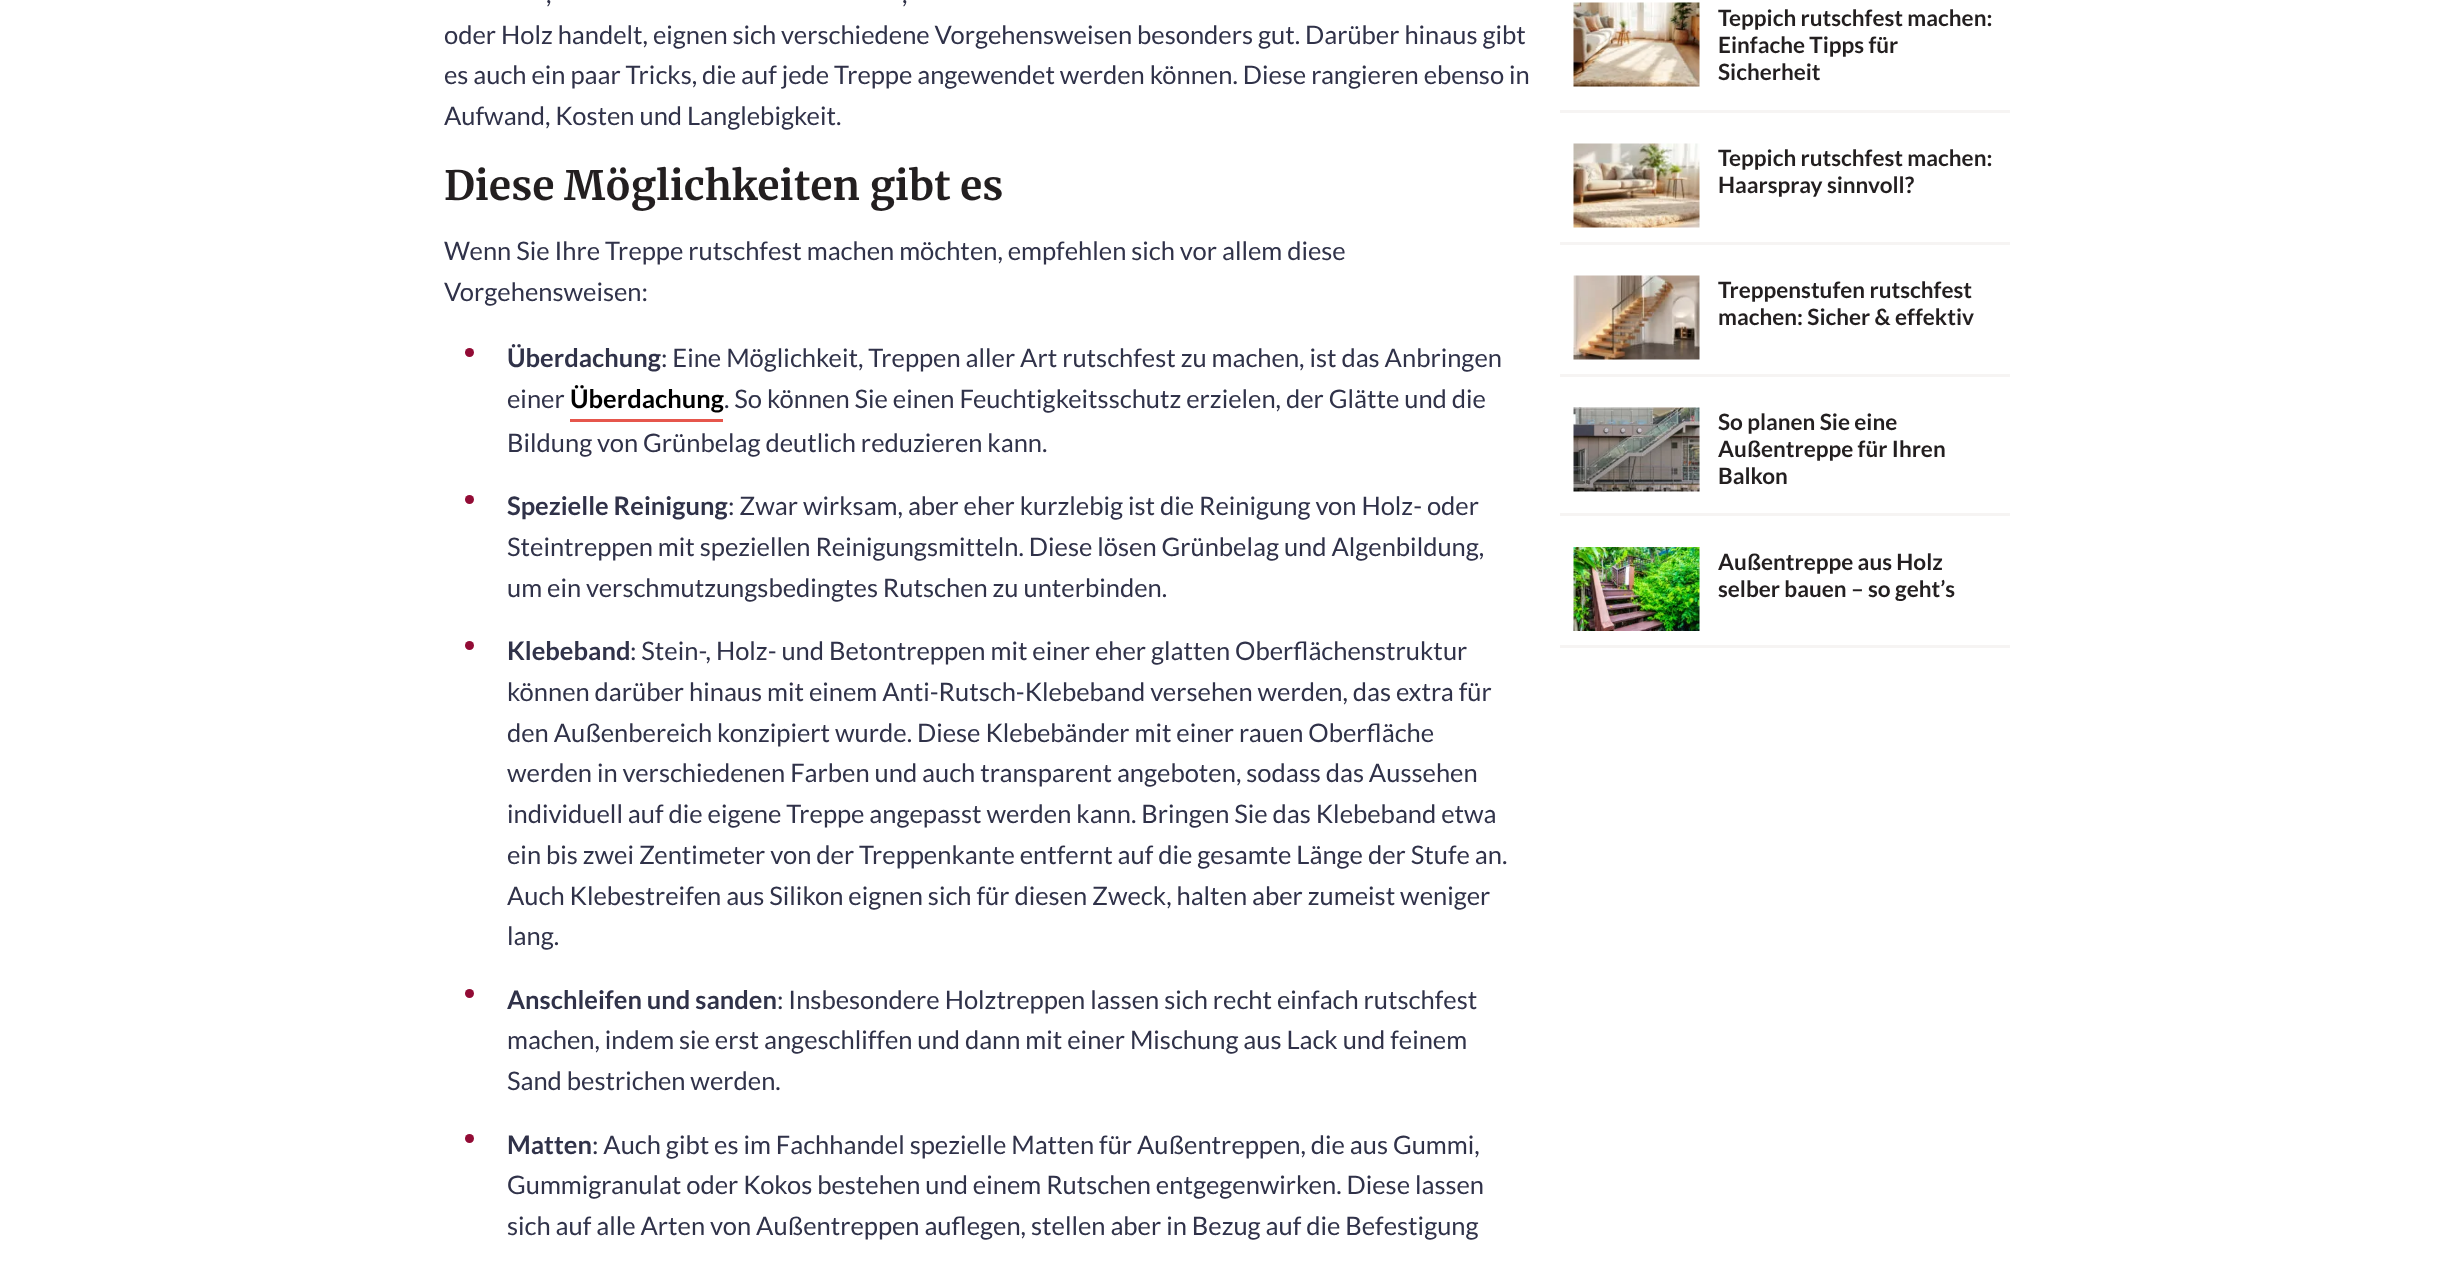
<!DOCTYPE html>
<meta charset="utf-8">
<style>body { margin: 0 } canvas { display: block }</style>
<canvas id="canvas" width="2453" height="1270"></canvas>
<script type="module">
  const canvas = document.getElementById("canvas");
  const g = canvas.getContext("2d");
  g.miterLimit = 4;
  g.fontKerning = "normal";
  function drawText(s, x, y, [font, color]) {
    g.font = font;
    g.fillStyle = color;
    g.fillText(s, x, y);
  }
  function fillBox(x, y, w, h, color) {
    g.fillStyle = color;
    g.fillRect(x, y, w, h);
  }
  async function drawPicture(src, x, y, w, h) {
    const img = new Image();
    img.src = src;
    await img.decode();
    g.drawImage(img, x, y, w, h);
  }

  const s1 = ["25.5px Lato", "#303249"];
  const s2 = ["bold 40.5px Merriweather", "#231F20"];
  const s3 = ["bold 25.5px Lato", "#303249"];
  const s4 = ["bold 25.5px Lato", "#000000"];
  const s5 = ["bold 22.5px Lato", "#231F20"];

  fillBox(0, 0, 2453, 1270, "#FFFFFF");
  drawText(",", 546, 3, s1);
  drawText(",", 902, 3, s1);
  drawText("oder Holz handelt, eignen sich verschiedene Vorgehensweisen besonders gut. Darüber hinaus gibt", 444, 44, s1);
  drawText("es auch ein paar Tricks, die auf jede Treppe angewendet werden können. Diese rangieren ebenso in", 444, 84, s1);
  drawText("Aufwand, Kosten und Langlebigkeit.", 444, 125, s1);
  drawText("Diese Möglichkeiten gibt es", 444, 200, s2);
  drawText("Wenn Sie Ihre Treppe rutschfest machen möchten, empfehlen sich vor allem diese", 444, 260, s1);
  drawText("Vorgehensweisen:", 444, 301, s1);
  g.fillStyle = "#920B35";
  g.beginPath();
  g.arc(469.5, 352.5, 4.5, 0, Math.PI * 2);
  g.fill();
  drawText("Überdachung", 507, 367, s3);
  drawText(": Eine Möglichkeit, Treppen aller Art rutschfest zu machen, ist das Anbringen", 661, 367, s1);
  drawText("einer", 507, 408, s1);
  fillBox(570, 419, 153, 3, "#E6564C");
  drawText("Überdachung", 570, 408, s4);
  drawText(". So können Sie einen Feuchtigkeitsschutz erzielen, der Glätte und die", 724, 408, s1);
  drawText("Bildung von Grünbelag deutlich reduzieren kann.", 507, 452, s1);
  g.fillStyle = "#920B35";
  g.beginPath();
  g.arc(469.5, 499.5, 4.5, 0, Math.PI * 2);
  g.fill();
  drawText("Spezielle Reinigung", 507, 515, s3);
  drawText(": Zwar wirksam, aber eher kurzlebig ist die Reinigung von Holz- oder", 728, 515, s1);
  drawText("Steintreppen mit speziellen Reinigungsmitteln. Diese lösen Grünbelag und Algenbildung,", 507, 556, s1);
  drawText("um ein verschmutzungsbedingtes Rutschen zu unterbinden.", 507, 597, s1);
  g.fillStyle = "#920B35";
  g.beginPath();
  g.arc(469.5, 645.5, 4.5, 0, Math.PI * 2);
  g.fill();
  drawText("Klebeband", 507, 660, s3);
  drawText(": Stein-, Holz- und Betontreppen mit einer eher glatten Oberflächenstruktur", 630, 660, s1);
  drawText("können darüber hinaus mit einem Anti-Rutsch-Klebeband versehen werden, das extra für", 507, 701, s1);
  drawText("den Außenbereich konzipiert wurde. Diese Klebebänder mit einer rauen Oberfläche", 507, 742, s1);
  drawText("werden in verschiedenen Farben und auch transparent angeboten, sodass das Aussehen", 507, 782, s1);
  drawText("individuell auf die eigene Treppe angepasst werden kann. Bringen Sie das Klebeband etwa", 507, 823, s1);
  drawText("ein bis zwei Zentimeter von der Treppenkante entfernt auf die gesamte Länge der Stufe an.", 507, 864, s1);
  drawText("Auch Klebestreifen aus Silikon eignen sich für diesen Zweck, halten aber zumeist weniger", 507, 905, s1);
  drawText("lang.", 507, 945, s1);
  g.fillStyle = "#920B35";
  g.beginPath();
  g.arc(469.5, 993.5, 4.5, 0, Math.PI * 2);
  g.fill();
  drawText("Anschleifen und sanden", 507, 1009, s3);
  drawText(": Insbesondere Holztreppen lassen sich recht einfach rutschfest", 777, 1009, s1);
  drawText("machen, indem sie erst angeschliffen und dann mit einer Mischung aus Lack und feinem", 507, 1049, s1);
  drawText("Sand bestrichen werden.", 507, 1090, s1);
  g.fillStyle = "#920B35";
  g.beginPath();
  g.arc(469.5, 1138.5, 4.5, 0, Math.PI * 2);
  g.fill();
  drawText("Matten", 507, 1154, s3);
  drawText(": Auch gibt es im Fachhandel spezielle Matten für Außentreppen, die aus Gummi,", 592, 1154, s1);
  drawText("Gummigranulat oder Kokos bestehen und einem Rutschen entgegenwirken. Diese lassen", 507, 1194, s1);
  drawText("sich auf alle Arten von Außentreppen auflegen, stellen aber in Bezug auf die Befestigung", 507, 1235, s1);
  fillBox(1560, 110, 450, 3, "#F6F4F3");
  await drawPicture("pic1.png", 1573, 2, 127, 85);
  drawText("Teppich rutschfest machen:", 1718, 26, s5);
  drawText("Einfache Tipps für", 1718, 53, s5);
  drawText("Sicherheit", 1718, 80, s5);
  fillBox(1560, 242, 450, 3, "#F6F4F3");
  await drawPicture("pic2.png", 1573, 143, 127, 85);
  drawText("Teppich rutschfest machen:", 1718, 166, s5);
  drawText("Haarspray sinnvoll?", 1718, 193, s5);
  fillBox(1560, 374, 450, 3, "#F6F4F3");
  await drawPicture("pic3.png", 1573, 275, 127, 85);
  drawText("Treppenstufen rutschfest", 1718, 298, s5);
  drawText("machen: Sicher & effektiv", 1718, 325, s5);
  fillBox(1560, 513, 450, 3, "#F6F4F3");
  await drawPicture("pic4.png", 1573, 407, 127, 85);
  drawText("So planen Sie eine", 1718, 430, s5);
  drawText("Außentreppe für Ihren", 1718, 457, s5);
  drawText("Balkon", 1718, 484, s5);
  fillBox(1560, 645, 450, 3, "#F6F4F3");
  await drawPicture("pic5.png", 1573, 547, 127, 84);
  drawText("Außentreppe aus Holz", 1718, 570, s5);
  drawText("selber bauen – so geht’s", 1718, 597, s5);
</script>
